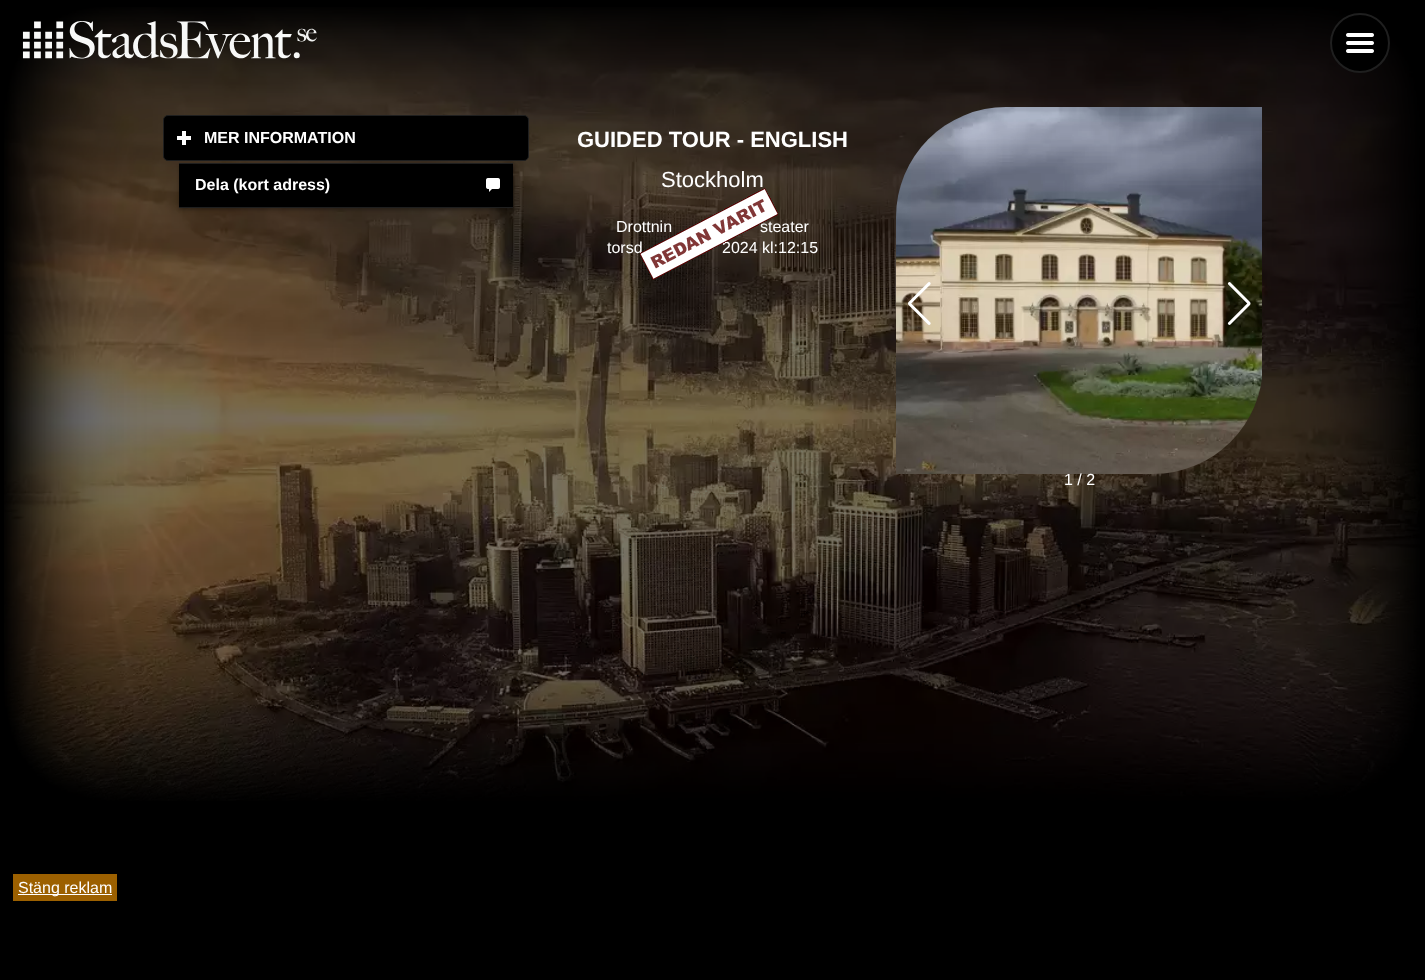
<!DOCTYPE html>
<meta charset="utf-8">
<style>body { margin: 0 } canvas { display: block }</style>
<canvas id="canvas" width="1425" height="980"></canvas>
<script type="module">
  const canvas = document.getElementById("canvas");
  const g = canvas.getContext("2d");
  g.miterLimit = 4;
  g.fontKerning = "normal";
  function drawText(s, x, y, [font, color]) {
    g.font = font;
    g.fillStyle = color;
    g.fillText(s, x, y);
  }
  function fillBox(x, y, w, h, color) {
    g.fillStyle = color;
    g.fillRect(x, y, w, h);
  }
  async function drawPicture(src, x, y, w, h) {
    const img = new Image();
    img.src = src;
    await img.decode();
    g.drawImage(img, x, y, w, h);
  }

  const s1 = ["bold 16px Liberation Sans", "#FFFFFF"];
  const s2 = ["bold 22px Liberation Sans", "#FFFFFF"];
  const s3 = ["22px Liberation Sans", "#FFFFFF"];
  const s4 = ["16px Liberation Sans", "#FFFFFF"];

  fillBox(0, 0, 1425, 980, "#000000");
  await drawPicture("pic1.png", 4, 7, 1416, 794);
  await drawPicture("pic2.png", 22, 21, 295, 38);
  g.beginPath();
  g.arc(1360, 43, 29, 0, Math.PI * 2);
  g.fill();
  g.strokeStyle = "#1F1F1F";
  g.lineWidth = 2;
  g.stroke();
  await drawPicture("pic3.png", 1346, 33, 28, 20);
  g.beginPath();
  g.roundRect(163.5, 115.5, 365, 45, 4.5);
  g.fill();
  g.lineWidth = 1;
  g.stroke();
  await drawPicture("pic4.png", 177, 131, 14, 14);
  drawText("MER INFORMATION", 204, 143, s1);
  g.fillStyle = "rgba(0, 0, 0, 0.25)";
  g.filter = "blur(1.5px)";
  g.beginPath();
  g.rect(179, 165, 334, 45);
  g.fill();
  g.filter = "none";
  fillBox(179, 164, 334, 43, "#000000");
  fillBox(179, 163, 334, 1, "#1F1F1F");
  fillBox(179, 207, 334, 1, "#1F1F1F");
  drawText("Dela (kort adress)", 195, 190, s1);
  await drawPicture("pic5.png", 486, 178, 14, 14);
  drawText("GUIDED TOUR - ENGLISH", 577, 147, s2);
  drawText("Stockholm", 661, 187, s3);
  drawText("Drottnin", 616, 232, s4);
  drawText("steater", 760, 232, s4);
  drawText("torsd", 607, 253, s4);
  drawText("2024 kl:12:15", 722, 253, s4);
  await drawPicture("pic6.png", 640, 188, 138, 92);
  await drawPicture("pic7.png", 896, 107, 366, 367);
  await drawPicture("pic8.png", 908, 282, 23, 43);
  await drawPicture("pic9.png", 1227, 282, 24, 43);
  drawText("1 / 2", 1064, 485, s4);
  fillBox(13, 874, 104, 27, "#9C6000");
  fillBox(18, 894, 94, 1, "#FFFFFF");
  drawText("Stäng reklam", 18, 893, s4);
</script>
